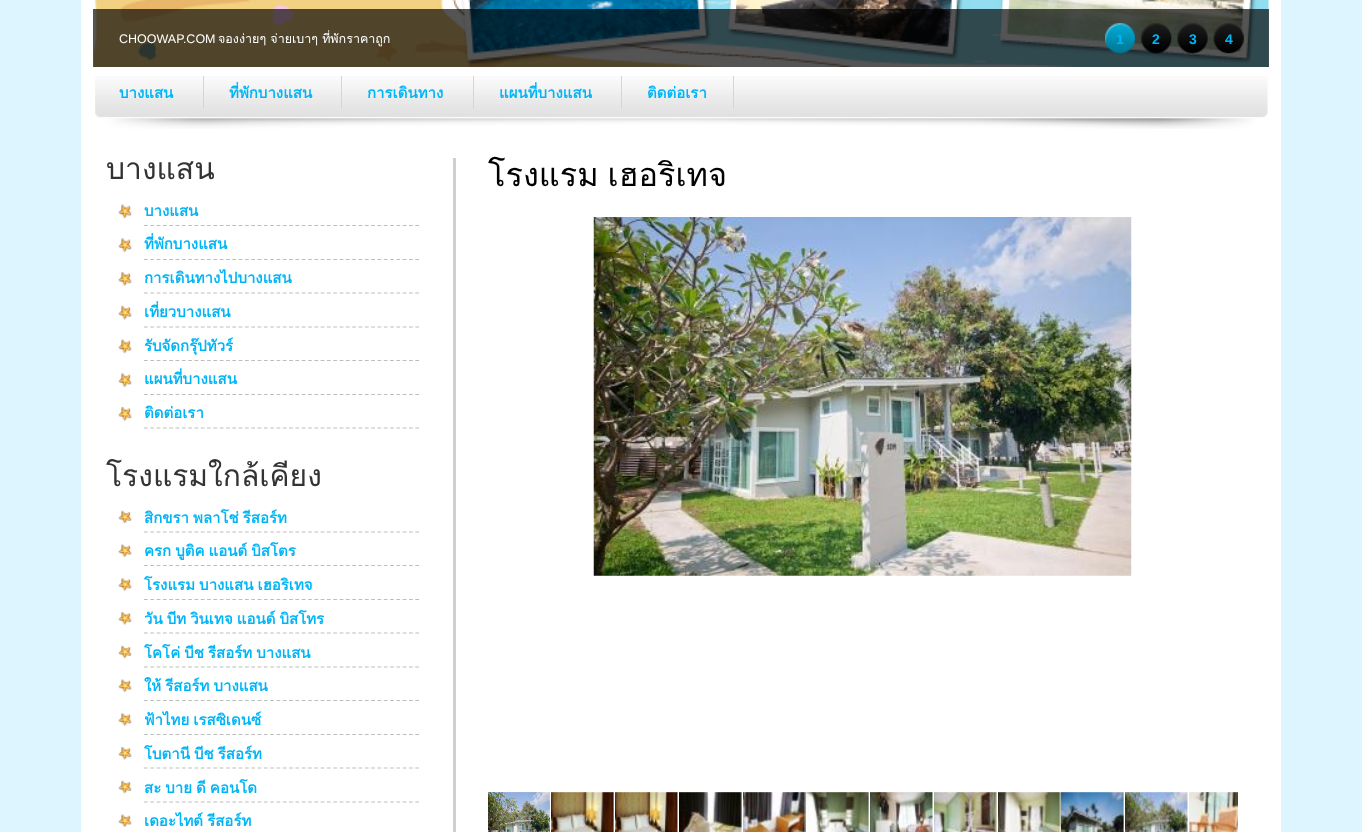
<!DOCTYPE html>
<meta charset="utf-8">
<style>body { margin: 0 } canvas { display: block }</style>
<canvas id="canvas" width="1362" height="832"></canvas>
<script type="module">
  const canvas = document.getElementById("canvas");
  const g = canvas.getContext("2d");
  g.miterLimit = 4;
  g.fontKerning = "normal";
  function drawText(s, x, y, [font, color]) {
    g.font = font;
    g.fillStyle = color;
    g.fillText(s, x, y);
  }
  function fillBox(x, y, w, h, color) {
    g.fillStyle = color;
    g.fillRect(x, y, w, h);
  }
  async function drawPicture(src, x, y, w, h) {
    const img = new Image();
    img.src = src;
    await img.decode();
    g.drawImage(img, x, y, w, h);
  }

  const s1 = ["12.5px Liberation Sans", "#FFFFFF"];
  const s2 = ["12.5px Loma", "#FFFFFF"];
  const s3 = ["bold 14px Liberation Sans", "#00B5F7"];
  const s4 = ["bold 15px Loma", "#00B5F7"];
  const s5 = ["30px Loma", "#333333"];
  const s6 = ["32.5px Loma", "#000000"];

  fillBox(0, 0, 1362, 832, "#DCF5FF");
  fillBox(81, 0, 1200, 832, "#FFFFFF");
  await drawPicture("pic1.png", 93, 0, 1176, 67);
  fillBox(93, 9, 1176, 58, "rgba(0, 0, 0, 0.67)");
  drawText("CHOOWAP.COM", 119, 43, s1);
  drawText("จองง่ายๆ จ่ายเบาๆ ที่พักราคาถูก", 218, 43, s2);
  await drawPicture("pic2.png", 1105, 23, 30, 31);
  drawText("1", 1116, 44, s3);
  await drawPicture("pic3.png", 1141, 23, 31, 31);
  drawText("2", 1152, 44, s3);
  await drawPicture("pic4.png", 1177, 23, 31, 31);
  drawText("3", 1189, 44, s3);
  await drawPicture("pic5.png", 1213, 23, 31, 31);
  drawText("4", 1225, 44, s3);
  await drawPicture("pic6.png", 95, 76, 1173, 53);
  drawText("บางแสน", 119, 98, s4);
  fillBox(203, 76, 1, 33, "#D5D5D5");
  drawText("ที่พักบางแสน", 229, 98, s4);
  fillBox(341, 76, 1, 33, "#D5D5D5");
  drawText("การเดินทาง", 367, 98, s4);
  fillBox(473, 76, 1, 33, "#D5D5D5");
  drawText("แผนที่บางแสน", 499, 98, s4);
  fillBox(621, 76, 1, 33, "#D5D5D5");
  drawText("ติดต่อเรา", 647, 98, s4);
  fillBox(733, 76, 1, 33, "#D5D5D5");
  fillBox(453, 158, 3, 674, "#CFCFCF");
  drawText("บางแสน", 106, 179, s5);
  await drawPicture("pic7.png", 118, 204, 14, 15);
  g.beginPath();
  g.moveTo(144, 225.5);
  g.lineTo(419, 225.5);
  g.strokeStyle = "#BDBDBD";
  g.lineWidth = 1.2;
  g.setLineDash([3.75, 2.56]);
  g.stroke();
  drawText("บางแสน", 144, 216, s4);
  await drawPicture("pic8.png", 118, 238, 14, 14);
  g.beginPath();
  g.moveTo(144, 259.5);
  g.lineTo(419, 259.5);
  g.stroke();
  drawText("ที่พักบางแสน", 144, 249, s4);
  await drawPicture("pic9.png", 118, 272, 14, 14);
  g.beginPath();
  g.moveTo(144, 293);
  g.lineTo(419, 293);
  g.stroke();
  drawText("การเดินทางไปบางแสน", 144, 283, s4);
  await drawPicture("pic10.png", 118, 305, 14, 15);
  g.beginPath();
  g.moveTo(144, 327);
  g.lineTo(419, 327);
  g.stroke();
  drawText("เที่ยวบางแสน", 144, 317, s4);
  await drawPicture("pic7.png", 118, 339, 14, 15);
  g.beginPath();
  g.moveTo(144, 360.5);
  g.lineTo(419, 360.5);
  g.stroke();
  drawText("รับจัดกรุ๊ปทัวร์", 144, 351, s4);
  await drawPicture("pic8.png", 118, 373, 14, 14);
  g.beginPath();
  g.moveTo(144, 394.5);
  g.lineTo(419, 394.5);
  g.stroke();
  drawText("แผนที่บางแสน", 144, 384, s4);
  await drawPicture("pic9.png", 118, 407, 14, 14);
  g.beginPath();
  g.moveTo(144, 428);
  g.lineTo(419, 428);
  g.stroke();
  drawText("ติดต่อเรา", 144, 418, s4);
  drawText("โรงแรมใกล้เคียง", 106, 486, s5);
  await drawPicture("pic11.png", 118, 510, 14, 14);
  g.beginPath();
  g.moveTo(144, 532);
  g.lineTo(419, 532);
  g.stroke();
  g.wordSpacing = "-1px";
  drawText("สิกขรา พลาโช่ รีสอร์ท", 144, 523, s4);
  await drawPicture("pic12.png", 118, 544, 14, 13);
  g.beginPath();
  g.moveTo(144, 565.5);
  g.lineTo(419, 565.5);
  g.stroke();
  drawText("ครก บูติค แอนด์ บิสโตร", 144, 556, s4);
  await drawPicture("pic13.png", 118, 578, 14, 13);
  g.beginPath();
  g.moveTo(144, 599.5);
  g.lineTo(419, 599.5);
  g.stroke();
  drawText("โรงแรม บางแสน เฮอริเทจ", 144, 590, s4);
  await drawPicture("pic14.png", 118, 612, 14, 13);
  g.beginPath();
  g.moveTo(144, 633);
  g.lineTo(419, 633);
  g.stroke();
  drawText("วัน บีท วินเทจ แอนด์ บิสโทร", 144, 624, s4);
  await drawPicture("pic11.png", 118, 645, 14, 14);
  g.beginPath();
  g.moveTo(144, 667);
  g.lineTo(419, 667);
  g.stroke();
  drawText("โคโค่ บีช รีสอร์ท บางแสน", 144, 658, s4);
  await drawPicture("pic12.png", 118, 679, 14, 13);
  g.beginPath();
  g.moveTo(144, 700.5);
  g.lineTo(419, 700.5);
  g.stroke();
  drawText("ให้ รีสอร์ท บางแสน", 144, 691, s4);
  await drawPicture("pic13.png", 118, 713, 14, 13);
  g.beginPath();
  g.moveTo(144, 734.5);
  g.lineTo(419, 734.5);
  g.stroke();
  drawText("ฟ้าไทย เรสซิเดนซ์", 144, 725, s4);
  await drawPicture("pic14.png", 118, 747, 14, 13);
  g.beginPath();
  g.moveTo(144, 768);
  g.lineTo(419, 768);
  g.stroke();
  drawText("โบตานี บีช รีสอร์ท", 144, 759, s4);
  await drawPicture("pic15.png", 118, 780, 14, 14);
  g.beginPath();
  g.moveTo(144, 802);
  g.lineTo(419, 802);
  g.stroke();
  drawText("สะ บาย ดี คอนโด", 144, 793, s4);
  await drawPicture("pic12.png", 118, 814, 14, 13);
  drawText("เดอะไทด์ รีสอร์ท", 144, 826, s4);
  g.wordSpacing = "-2px";
  drawText("โรงแรม เฮอริเทจ", 488, 186, s6);
  await drawPicture("pic16.png", 593, 217, 539, 359);
  await drawPicture("pic17.png", 488, 792, 62, 40);
  await drawPicture("pic18.png", 551, 792, 63, 40);
  await drawPicture("pic19.png", 615, 792, 63, 40);
  await drawPicture("pic20.png", 679, 792, 63, 40);
  await drawPicture("pic21.png", 743, 792, 63, 40);
  await drawPicture("pic22.png", 806, 792, 63, 40);
  await drawPicture("pic23.png", 870, 792, 63, 40);
  await drawPicture("pic24.png", 934, 792, 63, 40);
  await drawPicture("pic25.png", 998, 792, 63, 40);
  await drawPicture("pic26.png", 1061, 792, 63, 40);
  await drawPicture("pic27.png", 1125, 792, 63, 40);
  await drawPicture("pic28.png", 1189, 792, 49, 40);
</script>
